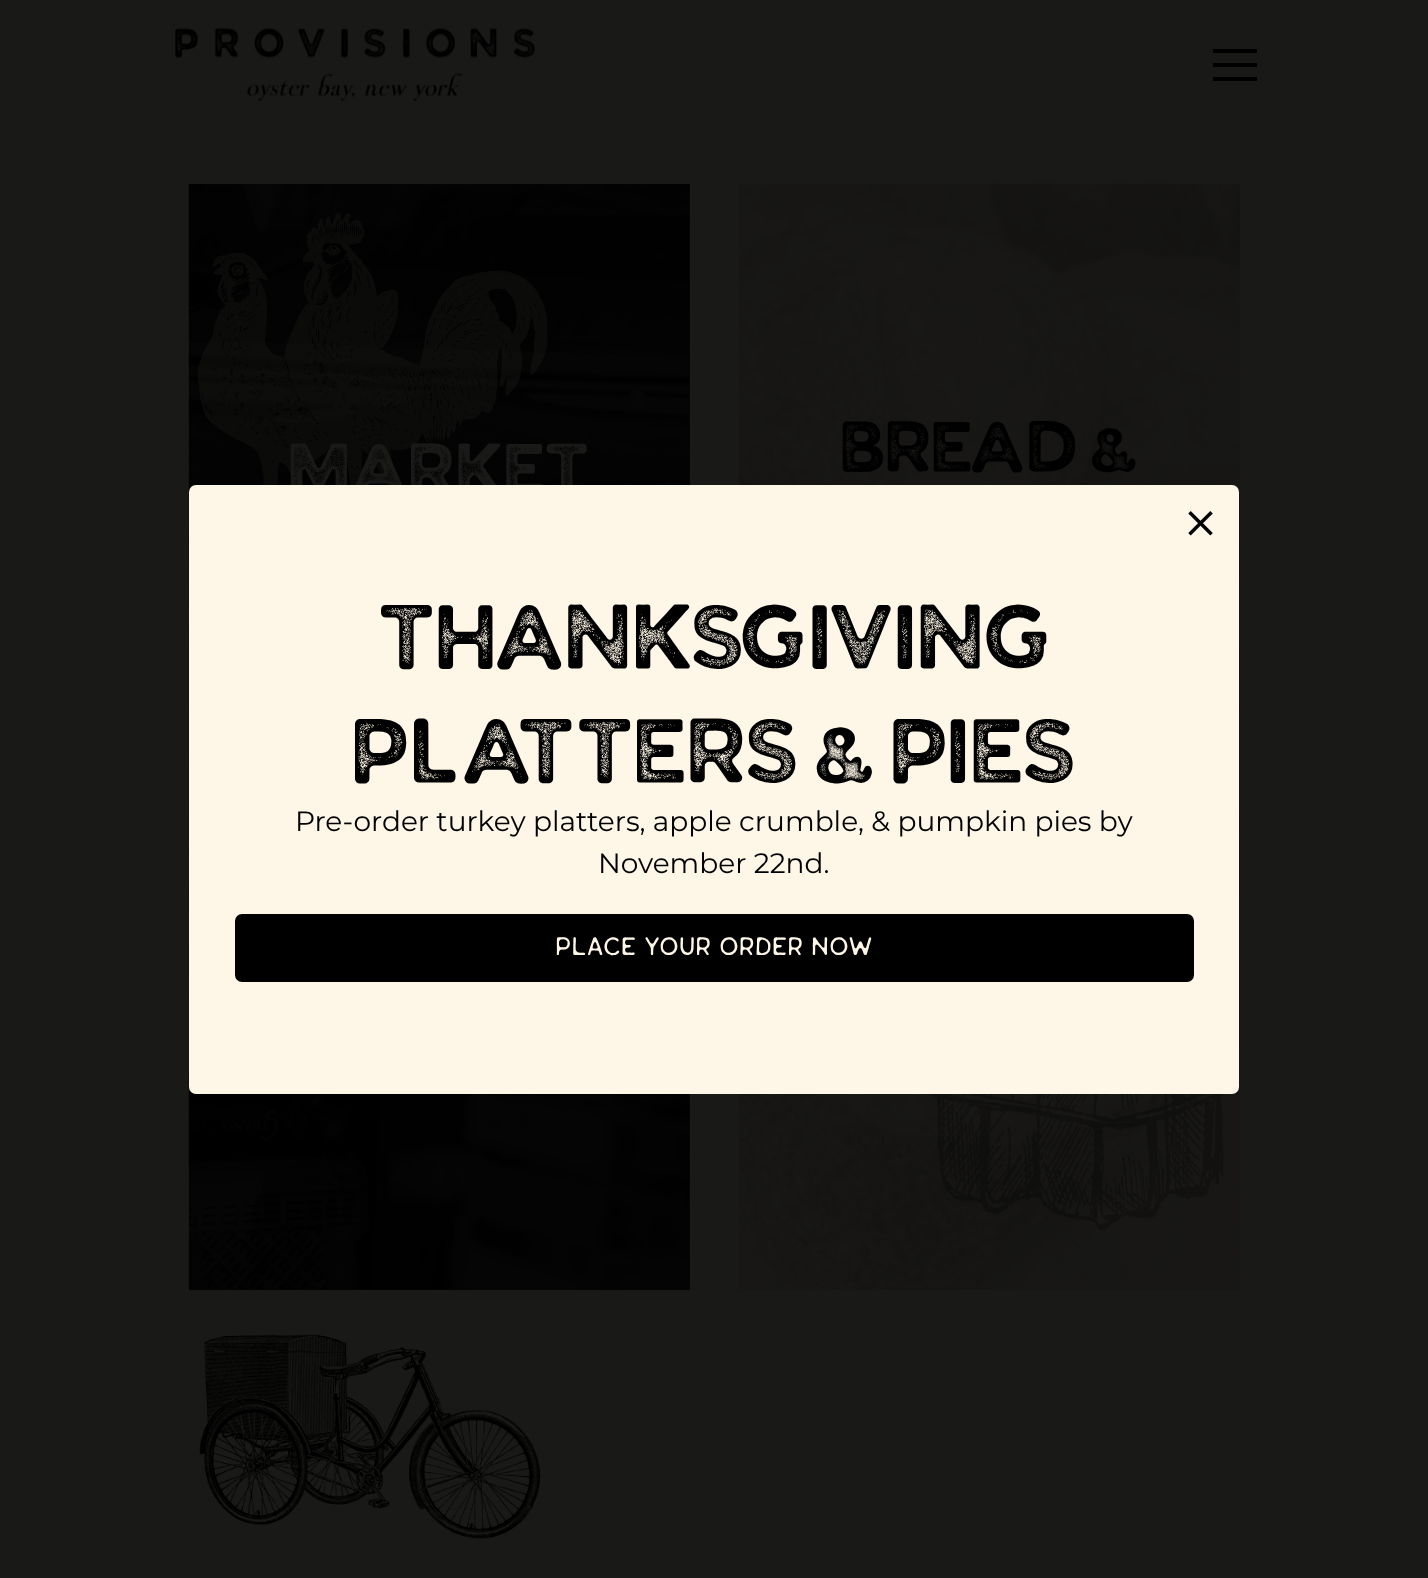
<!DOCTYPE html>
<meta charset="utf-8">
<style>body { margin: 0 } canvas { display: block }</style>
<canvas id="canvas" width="1428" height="1578"></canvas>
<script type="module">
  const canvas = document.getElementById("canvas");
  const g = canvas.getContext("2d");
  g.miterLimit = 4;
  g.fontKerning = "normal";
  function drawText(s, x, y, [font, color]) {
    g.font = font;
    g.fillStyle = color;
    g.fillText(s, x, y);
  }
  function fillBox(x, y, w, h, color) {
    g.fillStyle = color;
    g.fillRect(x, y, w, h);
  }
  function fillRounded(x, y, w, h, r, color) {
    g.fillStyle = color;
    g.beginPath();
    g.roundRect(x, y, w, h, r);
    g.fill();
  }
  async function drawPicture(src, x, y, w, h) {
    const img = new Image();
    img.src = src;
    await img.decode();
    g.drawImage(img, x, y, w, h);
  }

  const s1 = ["77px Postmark", "#191917"];
  const s2 = ["77px Postmark", "#000000"];
  const s3 = ["98px Postmark", "#000000"];
  const s4 = ["100 28px Montserrat", "#000000"];
  const s5 = ["25.25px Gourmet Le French", "#FEF6E6"];

  fillBox(0, 0, 1428, 1578, "#191917");
  fillBox(189, 184, 501, 1106, "#060606");
  await drawPicture("pic1.png", 175, 27, 360, 75);
  fillBox(1213, 49, 44, 4, "#000000");
  fillBox(1213, 63, 44, 4, "#000000");
  fillBox(1213, 77, 44, 4, "#000000");
  await drawPicture("pic4.png", 188, 183, 501, 1107);
  drawText("MARKET", 290, 494, s1);
  await drawPicture("pic2.png", 197, 213, 351, 272);
  await drawPicture("pic3.png", 739, 183, 501, 1107);
  drawText("BREAD &", 842, 472, s2);
  await drawPicture("pic5.png", 929, 1094, 295, 137);
  await drawPicture("pic6.png", 199, 1335, 342, 204);
  fillRounded(189, 485, 1050, 609, 7, "#FEF6E6");
  await drawPicture("pic7.png", 1188, 511, 25, 25);
  drawText("THANKSGIVING", 380, 669, s3);
  drawText("PLATTERS & PIES", 354, 783, s3);
  drawText("Pre-order turkey platters, apple crumble, & pumpkin pies by", 295, 831, s4);
  drawText("November 22nd.", 598, 873, s4);
  g.beginPath();
  g.roundRect(236, 915, 957, 66, 6);
  g.fill();
  g.strokeStyle = "#000000";
  g.lineWidth = 2;
  g.stroke();
  drawText("PLACE YOUR ORDER NOW", 555, 955, s5);
</script>
